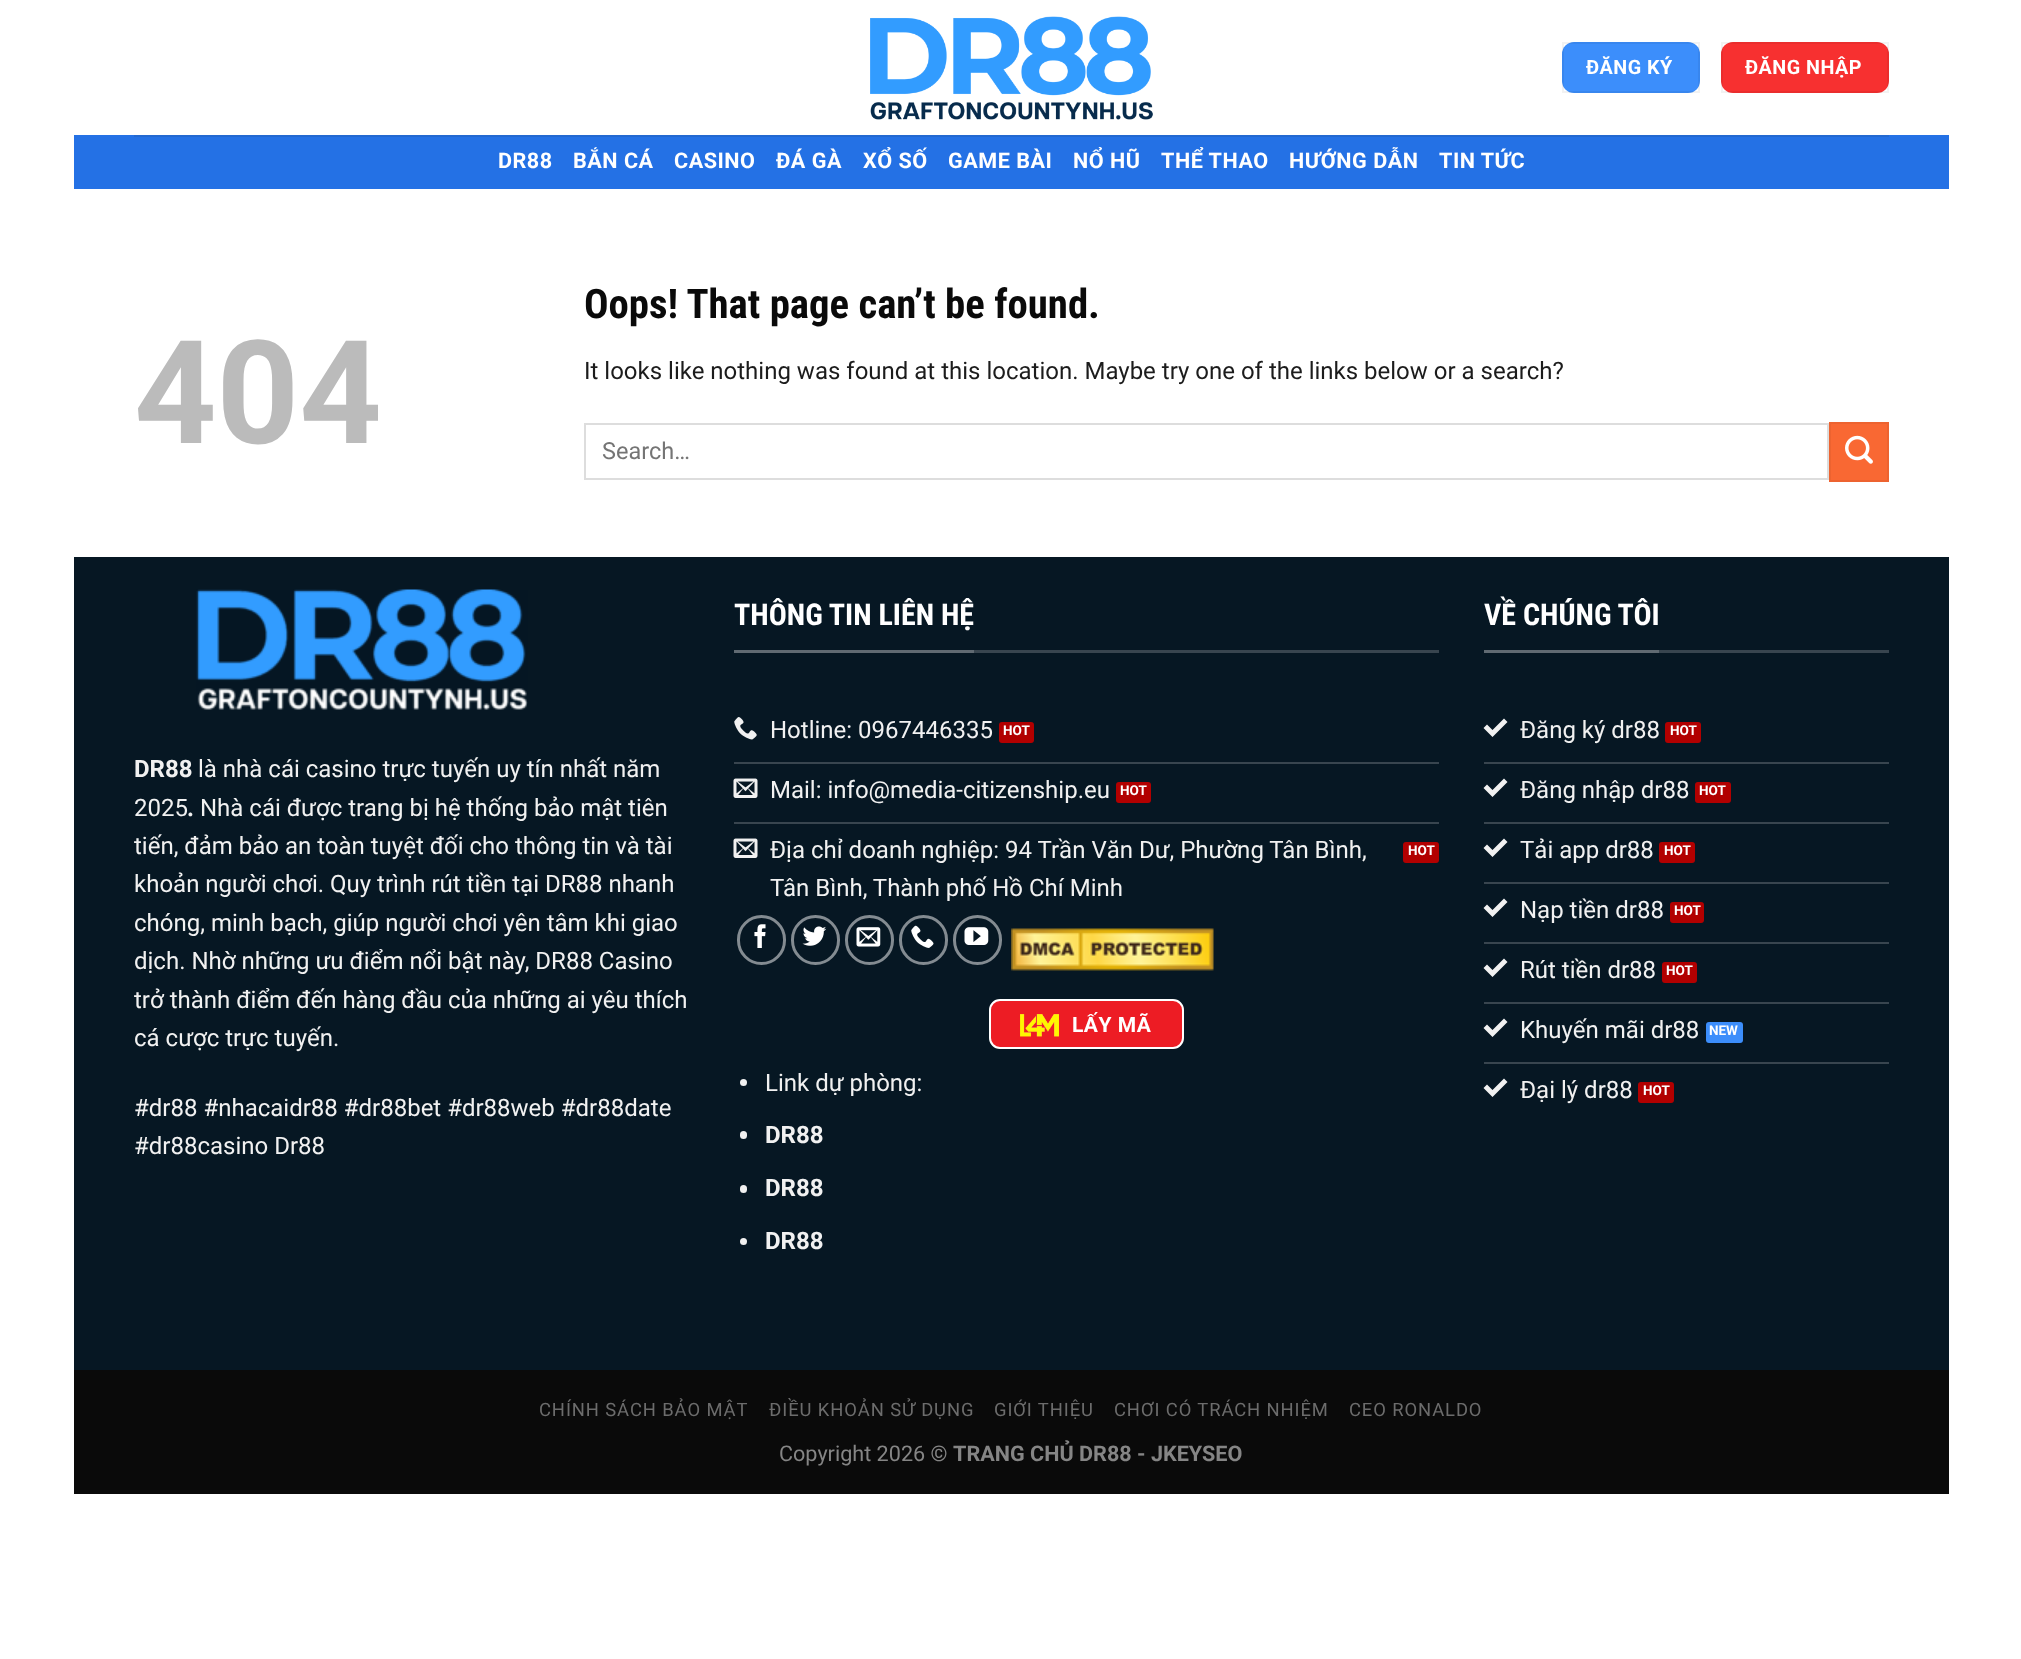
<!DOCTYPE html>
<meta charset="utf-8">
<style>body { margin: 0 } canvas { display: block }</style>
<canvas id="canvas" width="2021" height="1659"></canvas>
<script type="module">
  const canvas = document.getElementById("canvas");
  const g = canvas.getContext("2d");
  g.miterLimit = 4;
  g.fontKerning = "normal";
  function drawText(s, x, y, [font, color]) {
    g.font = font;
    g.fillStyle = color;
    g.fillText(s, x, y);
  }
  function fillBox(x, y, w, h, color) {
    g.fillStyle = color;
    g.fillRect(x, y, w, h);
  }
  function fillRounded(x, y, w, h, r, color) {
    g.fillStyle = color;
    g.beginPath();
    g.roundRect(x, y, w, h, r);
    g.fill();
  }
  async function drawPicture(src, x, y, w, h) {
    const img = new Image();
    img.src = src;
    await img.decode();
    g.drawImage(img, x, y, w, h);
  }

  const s1 = ["bold 19.75px Roboto", "#FFFFFF"];
  const s2 = ["bold 21.6px Roboto", "#FFFFFF"];
  const s3 = ["bold 144px Roboto", "#BBBBBB"];
  const s4 = ["bold 40.75px Roboto Condensed", "#0A0A0A"];
  const s5 = ["24px Roboto", "#1C1C1C"];
  const s6 = ["23.5px Roboto", "#757575"];
  const s7 = ["bold 24px Roboto", "#F1F1F1"];
  const s8 = ["24px Roboto", "#F1F1F1"];
  const s9 = ["bold 30px Roboto Condensed", "#FFFFFF"];
  const s10 = ["bold 13.5px Roboto", "#FFFFFF"];
  const s11 = ["bold 21px Roboto", "#FFFFFF"];
  const s12 = ["18.4px Roboto", "#6C6C6C"];
  const s13 = ["21.6px Roboto", "#858585"];
  const s14 = ["bold 21.6px Roboto", "#858585"];

  fillBox(0, 0, 2021, 1659, "#FFFFFF");
  await drawPicture("pic1.png", 870, 16, 283, 104);
  fillRounded(1562, 42, 138, 51, 12, "#3C8EFB");
  g.strokeStyle = "rgba(0, 0, 0, 0.05)";
  g.lineWidth = 2;
  g.strokeRect(1563, 43, 136, 49);
  g.letterSpacing = "0.5px";
  drawText("ĐĂNG KÝ", 1586, 74, s1);
  fillRounded(1721, 42, 168, 51, 12, "#F73030");
  g.strokeRect(1722, 43, 166, 49);
  drawText("ĐĂNG NHẬP", 1745, 74, s1);
  fillBox(74, 135, 1875, 54, "#2471E5");
  fillBox(134, 135, 1755, 2, "#2369D1");
  drawText("DR88", 498, 168, s2);
  drawText("BẮN CÁ", 573, 168, s2);
  drawText("CASINO", 674, 168, s2);
  drawText("ĐÁ GÀ", 776, 168, s2);
  drawText("XỔ SỐ", 863, 168, s2);
  drawText("GAME BÀI", 948, 168, s2);
  drawText("NỔ HŨ", 1073, 168, s2);
  drawText("THỂ THAO", 1161, 168, s2);
  drawText("HƯỚNG DẪN", 1289, 168, s2);
  drawText("TIN TỨC", 1439, 168, s2);
  g.letterSpacing = "0px";
  drawText("404", 134, 443, s3);
  drawText("Oops! That page can’t be found.", 584, 318, s4);
  drawText("It looks like nothing was found at this location. Maybe try one of the links below or a search?", 584, 379, s5);
  g.strokeStyle = "#DDDDDD";
  g.strokeRect(585, 424, 1243, 55);
  drawText("Search…", 602, 459, s6);
  g.fillStyle = "#F96833";
  g.beginPath();
  g.rect(1830, 423, 58, 58);
  g.fill();
  g.strokeStyle = "#ED6330";
  g.stroke();
  await drawPicture("pic2.png", 1845, 435, 28, 29);
  fillBox(74, 557, 1875, 813, "#061723");
  await drawPicture("pic3.png", 196, 589, 332, 121);
  drawText("DR88", 134, 777, s7);
  drawText("là nhà cái casino trực tuyến uy tín nhất năm", 198, 777, s8);
  drawText("2025", 134, 816, s8);
  drawText(".", 187, 816, s7);
  drawText("Nhà cái được trang bị hệ thống bảo mật tiên", 200, 816, s8);
  drawText("tiến, đảm bảo an toàn tuyệt đối cho thông tin và tài", 134, 854, s8);
  drawText("khoản người chơi. Quy trình rút tiền tại DR88 nhanh", 134, 892, s8);
  drawText("chóng, minh bạch, giúp người chơi yên tâm khi giao", 134, 931, s8);
  drawText("dịch. Nhờ những ưu điểm nổi bật này, DR88 Casino", 134, 969, s8);
  drawText("trở thành điểm đến hàng đầu của những ai yêu thích", 134, 1008, s8);
  drawText("cá cược trực tuyến.", 134, 1046, s8);
  drawText("#dr88 #nhacaidr88 #dr88bet #dr88web #dr88date", 134, 1116, s8);
  drawText("#dr88casino Dr88", 134, 1154, s8);
  fillBox(974, 650, 465, 3, "#38454F");
  fillBox(734, 650, 240, 3, "#606A72");
  drawText("THÔNG TIN LIÊN HỆ", 734, 625, s9);
  fillBox(734, 762, 705, 2, "#38454F");
  await drawPicture("pic4.png", 734, 717, 23, 23);
  drawText("Hotline: 0967446335", 770, 738, s8);
  fillRounded(999, 722, 35, 21, 3, "#B20000");
  drawText("HOT", 1003, 735, s10);
  fillBox(734, 822, 705, 2, "#38454F");
  await drawPicture("pic5.png", 733, 778, 25, 20);
  drawText("Mail: info@media-citizenship.eu", 770, 798, s8);
  fillRounded(1116, 782, 35, 21, 3, "#B20000");
  drawText("HOT", 1120, 795, s10);
  await drawPicture("pic5.png", 733, 838, 25, 20);
  drawText("Địa chỉ doanh nghiệp: 94 Trần Văn Dư, Phường Tân Bình,", 770, 858, s8);
  drawText("Tân Bình, Thành phố Hồ Chí Minh", 770, 896, s8);
  fillRounded(1403, 842, 36, 21, 3, "#B20000");
  drawText("HOT", 1408, 855, s10);
  g.beginPath();
  g.roundRect(738.5, 916.5, 46, 47, 23);
  g.strokeStyle = "#838B91";
  g.lineWidth = 3;
  g.stroke();
  await drawPicture("pic6.png", 754, 924, 12, 24);
  g.beginPath();
  g.roundRect(792.5, 916.5, 46, 47, 23);
  g.stroke();
  await drawPicture("pic7.png", 802, 926, 25, 20);
  g.beginPath();
  g.roundRect(846.5, 916.5, 46, 47, 23);
  g.stroke();
  await drawPicture("pic8.png", 856, 927, 25, 20);
  g.beginPath();
  g.roundRect(900.5, 916.5, 46, 47, 23);
  g.stroke();
  await drawPicture("pic9.png", 911, 925, 23, 23);
  g.beginPath();
  g.roundRect(954.5, 916.5, 46, 47, 23);
  g.stroke();
  await drawPicture("pic10.png", 964, 927, 25, 18);
  await drawPicture("pic11.png", 1011, 928, 203, 43);
  g.fillStyle = "#ED1C24";
  g.beginPath();
  g.roundRect(990, 1000, 193, 48, 10);
  g.fill();
  g.strokeStyle = "#FFFFFF";
  g.lineWidth = 2;
  g.stroke();
  await drawPicture("pic12.png", 1020, 1014, 39, 23);
  g.letterSpacing = "0.5px";
  drawText("LẤY MÃ", 1072, 1032, s11);
  g.fillStyle = "#F1F1F1";
  g.beginPath();
  g.arc(743.5, 1082.5, 3.5, 0, Math.PI * 2);
  g.fill();
  g.letterSpacing = "0px";
  drawText("Link dự phòng:", 765, 1091, s8);
  fillRounded(740, 1131, 7, 8, 3.5, "#F1F1F1");
  drawText("DR88", 765, 1143, s7);
  fillRounded(740, 1185, 7, 8, 3.5, "#F1F1F1");
  drawText("DR88", 765, 1196, s7);
  g.beginPath();
  g.arc(743.5, 1241.5, 3.5, 0, Math.PI * 2);
  g.fill();
  drawText("DR88", 765, 1249, s7);
  fillBox(1659, 650, 230, 3, "#38454F");
  fillBox(1484, 650, 175, 3, "#606A72");
  drawText("VỀ CHÚNG TÔI", 1484, 625, s9);
  fillBox(1484, 762, 405, 2, "#38454F");
  g.fillStyle = "#F1F1F1";
  g.beginPath();
  g.moveTo(1504, 718.5);
  g.lineTo(1492.5, 730);
  g.lineTo(1487, 724.5);
  g.lineTo(1483.5, 728);
  g.lineTo(1492.5, 737);
  g.lineTo(1507.5, 722);
  g.closePath();
  g.fill();
  drawText("Đăng ký dr88", 1520, 738, s8);
  fillRounded(1665, 722, 36, 21, 3, "#B20000");
  drawText("HOT", 1670, 735, s10);
  fillBox(1484, 822, 405, 2, "#38454F");
  g.fillStyle = "#F1F1F1";
  g.beginPath();
  g.moveTo(1504, 778.5);
  g.lineTo(1492.5, 790);
  g.lineTo(1487, 784.5);
  g.lineTo(1483.5, 788);
  g.lineTo(1492.5, 797);
  g.lineTo(1507.5, 782);
  g.closePath();
  g.fill();
  drawText("Đăng nhập dr88", 1520, 798, s8);
  fillRounded(1695, 782, 36, 21, 3, "#B20000");
  drawText("HOT", 1699, 795, s10);
  fillBox(1484, 882, 405, 2, "#38454F");
  g.fillStyle = "#F1F1F1";
  g.beginPath();
  g.moveTo(1504, 838.5);
  g.lineTo(1492.5, 850);
  g.lineTo(1487, 844.5);
  g.lineTo(1483.5, 848);
  g.lineTo(1492.5, 857);
  g.lineTo(1507.5, 842);
  g.closePath();
  g.fill();
  drawText("Tải app dr88", 1520, 858, s8);
  fillRounded(1659, 842, 36, 21, 3, "#B20000");
  drawText("HOT", 1664, 855, s10);
  fillBox(1484, 942, 405, 2, "#38454F");
  g.fillStyle = "#F1F1F1";
  g.beginPath();
  g.moveTo(1504, 898.5);
  g.lineTo(1492.5, 910);
  g.lineTo(1487, 904.5);
  g.lineTo(1483.5, 908);
  g.lineTo(1492.5, 917);
  g.lineTo(1507.5, 902);
  g.closePath();
  g.fill();
  drawText("Nạp tiền dr88", 1520, 918, s8);
  fillRounded(1670, 902, 34, 21, 3, "#B20000");
  drawText("HOT", 1674, 915, s10);
  fillBox(1484, 1002, 405, 2, "#38454F");
  g.fillStyle = "#F1F1F1";
  g.beginPath();
  g.moveTo(1504, 958.5);
  g.lineTo(1492.5, 970);
  g.lineTo(1487, 964.5);
  g.lineTo(1483.5, 968);
  g.lineTo(1492.5, 977);
  g.lineTo(1507.5, 962);
  g.closePath();
  g.fill();
  drawText("Rút tiền dr88", 1520, 978, s8);
  fillRounded(1662, 962, 35, 21, 3, "#B20000");
  drawText("HOT", 1666, 975, s10);
  fillBox(1484, 1062, 405, 2, "#38454F");
  g.fillStyle = "#F1F1F1";
  g.beginPath();
  g.moveTo(1504, 1018.5);
  g.lineTo(1492.5, 1030);
  g.lineTo(1487, 1024.5);
  g.lineTo(1483.5, 1028);
  g.lineTo(1492.5, 1037);
  g.lineTo(1507.5, 1022);
  g.closePath();
  g.fill();
  drawText("Khuyến mãi dr88", 1520, 1038, s8);
  fillRounded(1706, 1022, 37, 21, 3, "#3C8EFB");
  drawText("NEW", 1709, 1035, s10);
  g.fillStyle = "#F1F1F1";
  g.beginPath();
  g.moveTo(1504, 1078.5);
  g.lineTo(1492.5, 1090);
  g.lineTo(1487, 1084.5);
  g.lineTo(1483.5, 1088);
  g.lineTo(1492.5, 1097);
  g.lineTo(1507.5, 1082);
  g.closePath();
  g.fill();
  drawText("Đại lý dr88", 1520, 1098, s8);
  fillRounded(1638, 1082, 36, 21, 3, "#B20000");
  drawText("HOT", 1643, 1095, s10);
  fillBox(74, 1370, 1875, 124, "#0A0A0A");
  g.letterSpacing = "0.9px";
  drawText("CHÍNH SÁCH BẢO MẬT", 539, 1416, s12);
  drawText("ĐIỀU KHOẢN SỬ DỤNG", 769, 1416, s12);
  drawText("GIỚI THIỆU", 994, 1416, s12);
  drawText("CHƠI CÓ TRÁCH NHIỆM", 1114, 1416, s12);
  drawText("CEO RONALDO", 1349, 1416, s12);
  g.letterSpacing = "0px";
  drawText("Copyright 2026 ©", 779, 1461, s13);
  drawText("TRANG CHỦ DR88 - JKEYSEO", 953, 1461, s14);
</script>
